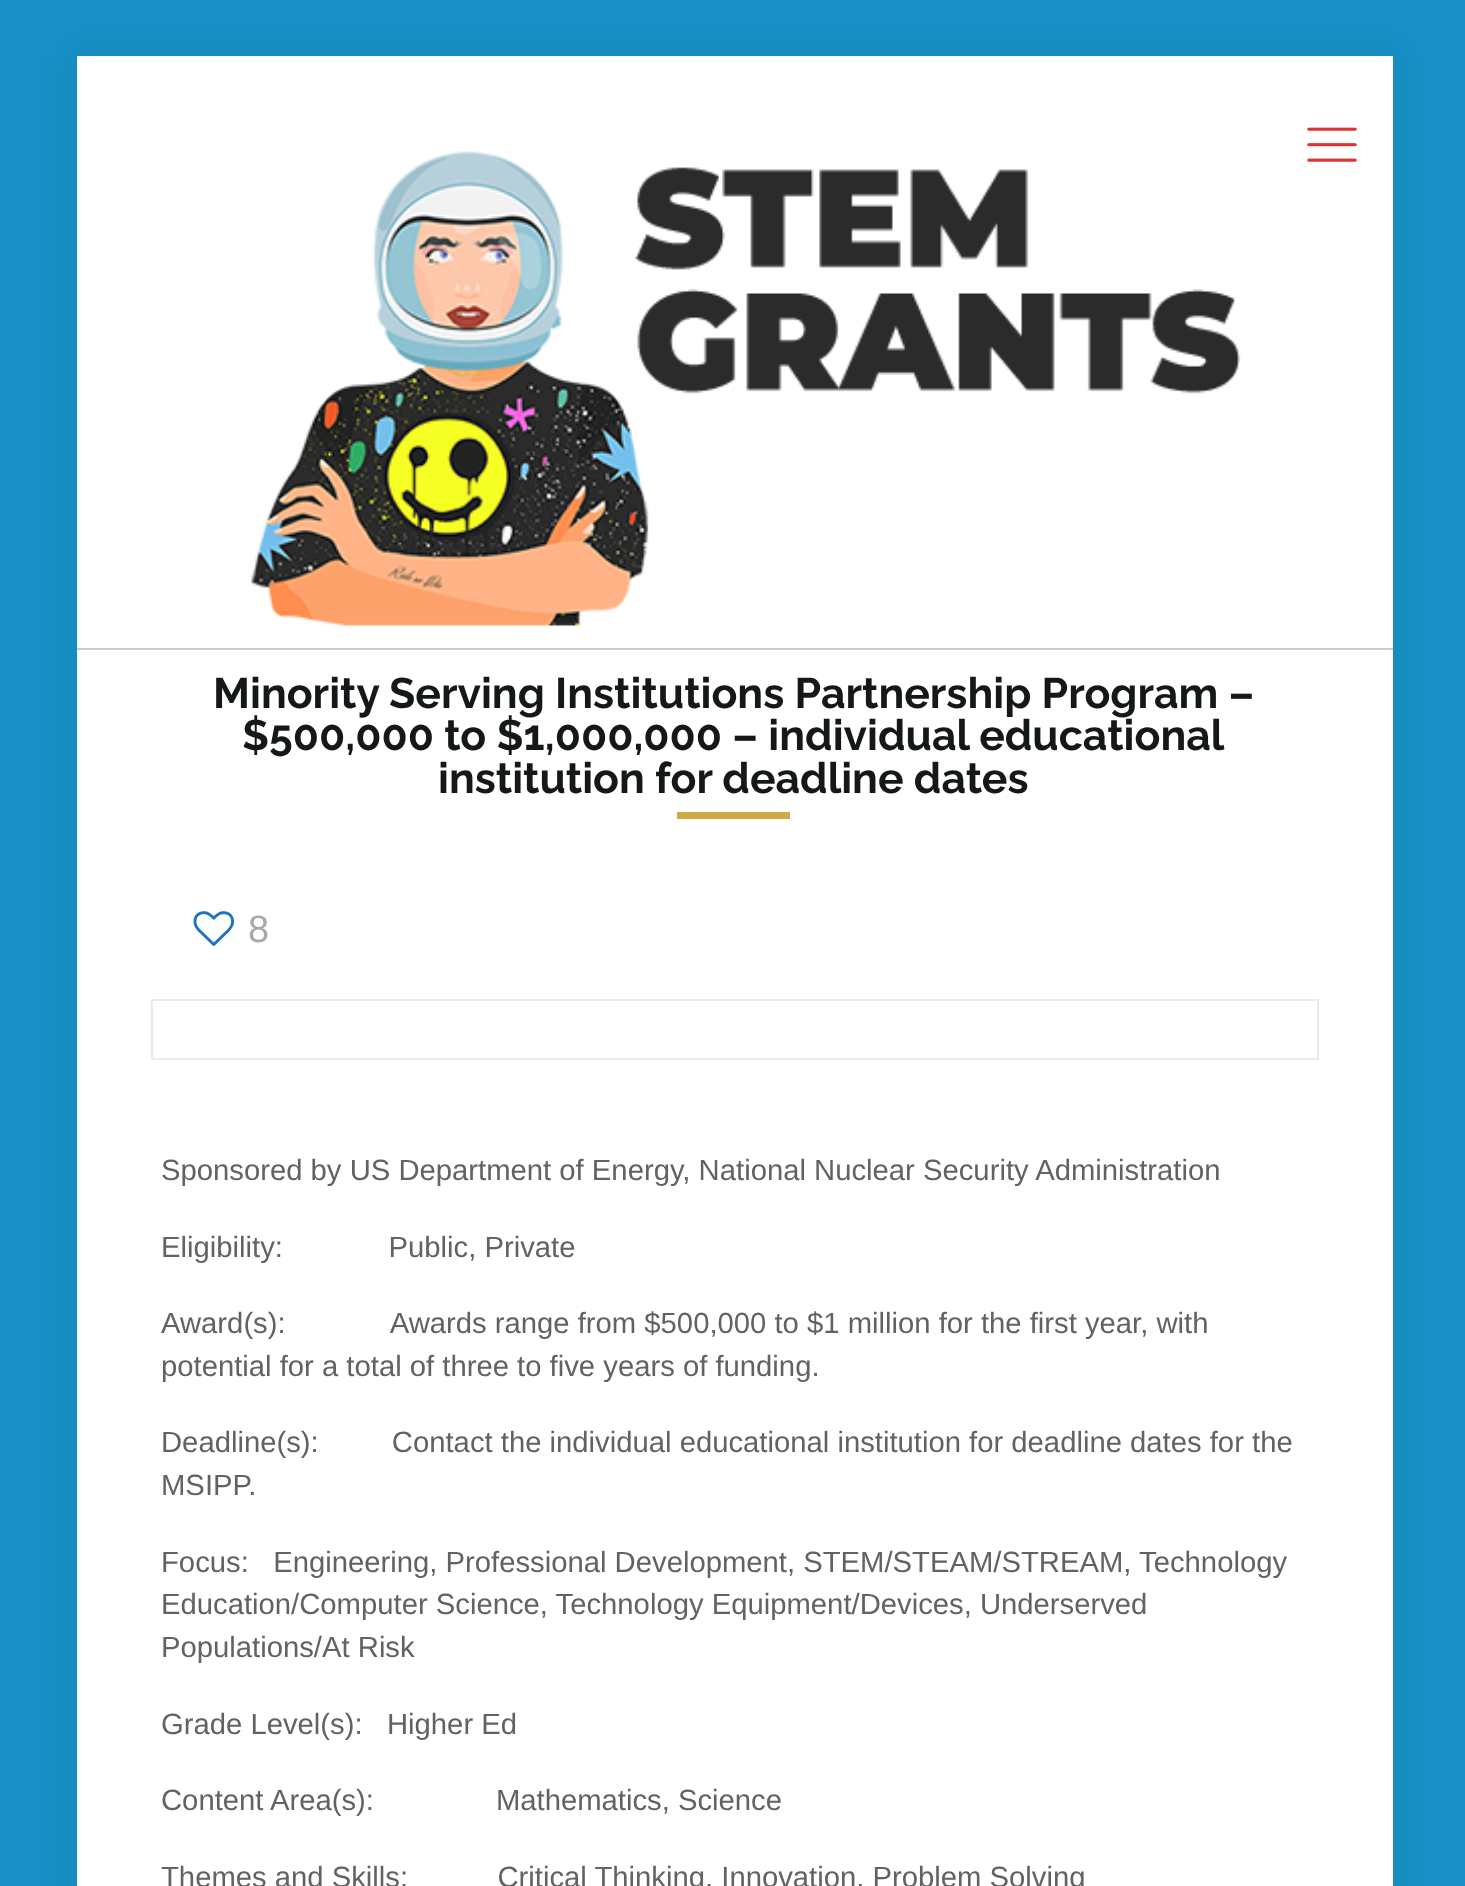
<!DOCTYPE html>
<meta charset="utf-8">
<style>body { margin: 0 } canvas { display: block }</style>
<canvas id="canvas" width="1465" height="1886"></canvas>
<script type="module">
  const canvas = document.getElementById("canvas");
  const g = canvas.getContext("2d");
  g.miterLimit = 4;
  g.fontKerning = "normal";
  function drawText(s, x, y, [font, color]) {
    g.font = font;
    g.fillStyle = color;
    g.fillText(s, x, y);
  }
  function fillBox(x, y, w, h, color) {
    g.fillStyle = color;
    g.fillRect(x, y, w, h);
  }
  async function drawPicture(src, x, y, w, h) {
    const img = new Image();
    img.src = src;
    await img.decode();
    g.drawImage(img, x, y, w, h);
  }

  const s1 = ["bold 42.75px Raleway", "#151818"];
  const s2 = ["38px Liberation Sans", "#A8A8A8"];
  const s3 = ["29.25px Liberation Sans", "#626262"];

  fillBox(0, 0, 1465, 1886, "#1890C5");
  g.fillStyle = "rgba(0, 0, 0, 0.06)";
  g.filter = "blur(17px)";
  g.beginPath();
  g.rect(77, 56, 1316, 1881);
  g.fill();
  g.filter = "none";
  fillBox(77, 650, 1316, 1236, "#FFFFFF");
  fillBox(77, 56, 1316, 592, "#FFFFFF");
  fillBox(77, 648, 1316, 2, "#CCCCCC");
  await drawPicture("pic1.png", 1307, 127, 50, 35);
  await drawPicture("pic2.png", 251, 151, 990, 475);
  drawText("Minority Serving Institutions Partnership Program –", 213, 708, s1);
  drawText("$500,000 to $1,000,000 – individual educational", 242, 750, s1);
  drawText("institution for deadline dates", 438, 793, s1);
  fillBox(677, 812, 113, 7, "#CFAA47");
  await drawPicture("pic3.png", 193, 911, 41, 35);
  drawText("8", 248, 942, s2);
  g.strokeStyle = "#EBEBEB";
  g.lineWidth = 2;
  g.strokeRect(152, 1000, 1166, 59);
  drawText("Sponsored by US Department of Energy, National Nuclear Security Administration", 161, 1180, s3);
  drawText("Eligibility:             Public, Private", 161, 1257, s3);
  drawText("Award(s):             Awards range from $500,000 to $1 million for the first year, with", 161, 1333, s3);
  drawText("potential for a total of three to five years of funding.", 161, 1376, s3);
  drawText("Deadline(s):         Contact the individual educational institution for deadline dates for the", 161, 1452, s3);
  drawText("MSIPP.", 161, 1495, s3);
  drawText("Focus:   Engineering, Professional Development, STEM/STEAM/STREAM, Technology", 161, 1572, s3);
  drawText("Education/Computer Science, Technology Equipment/Devices, Underserved", 161, 1614, s3);
  drawText("Populations/At Risk", 161, 1657, s3);
  drawText("Grade Level(s):   Higher Ed", 161, 1734, s3);
  drawText("Content Area(s):               Mathematics, Science", 161, 1810, s3);
  drawText("Themes and Skills:           Critical Thinking, Innovation, Problem Solving", 161, 1887, s3);
</script>
